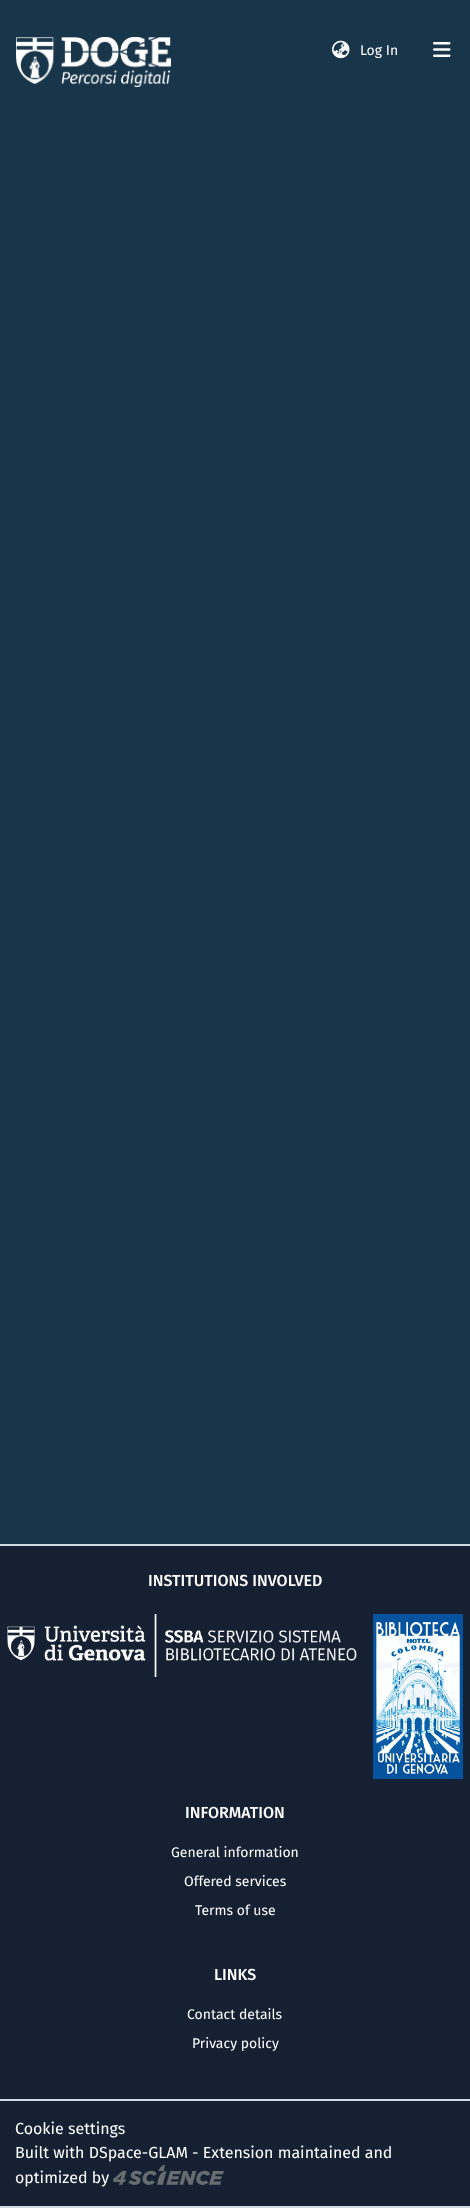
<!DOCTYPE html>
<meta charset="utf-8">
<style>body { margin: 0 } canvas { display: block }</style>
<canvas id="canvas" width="470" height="2208"></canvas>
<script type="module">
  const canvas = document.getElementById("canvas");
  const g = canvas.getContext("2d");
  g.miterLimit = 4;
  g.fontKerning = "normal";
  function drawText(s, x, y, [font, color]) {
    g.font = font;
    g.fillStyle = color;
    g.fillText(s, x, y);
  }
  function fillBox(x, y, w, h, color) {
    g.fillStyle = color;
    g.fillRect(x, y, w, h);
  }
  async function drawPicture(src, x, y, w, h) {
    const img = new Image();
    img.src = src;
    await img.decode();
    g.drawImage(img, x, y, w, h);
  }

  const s1 = ["14px Fira Sans", "#FFFFFF"];
  const s2 = ["500 16px Fira Sans", "#FFFFFF"];
  const s3 = ["16px Fira Sans", "#FFFFFF"];

  fillBox(0, 0, 470, 2208, "#18354A");
  await drawPicture("pic1.png", 16, 37, 155, 50);
  await drawPicture("pic2.png", 332, 40, 18, 19);
  drawText("Log In", 360, 55, s1);
  await drawPicture("pic3.png", 433, 42, 18, 15);
  fillBox(0, 1546, 470, 553, "#152033");
  fillBox(0, 1544, 470, 2, "#CDDCE2");
  fillBox(0, 2099, 470, 2, "#CDDCE2");
  drawText("INSTITUTIONS INVOLVED", 148, 1586, s2);
  await drawPicture("pic4.png", 7, 1614, 350, 63);
  await drawPicture("pic5.png", 373, 1614, 90, 165);
  drawText("INFORMATION", 185, 1818, s2);
  drawText("General information", 171, 1857, s1);
  drawText("Offered services", 184, 1886, s1);
  drawText("Terms of use", 195, 1915, s1);
  drawText("LINKS", 214, 1980, s2);
  drawText("Contact details", 187, 2019, s1);
  drawText("Privacy policy", 192, 2048, s1);
  fillBox(0, 2101, 470, 105, "#152033");
  fillBox(0, 2206, 470, 2, "#CDDCE2");
  drawText("Cookie settings", 15, 2134, s3);
  drawText("Built with DSpace-GLAM - Extension maintained and", 15, 2158, s3);
  drawText("optimized by", 15, 2183, s3);
  await drawPicture("pic6.png", 113, 2165, 111, 20);
</script>
